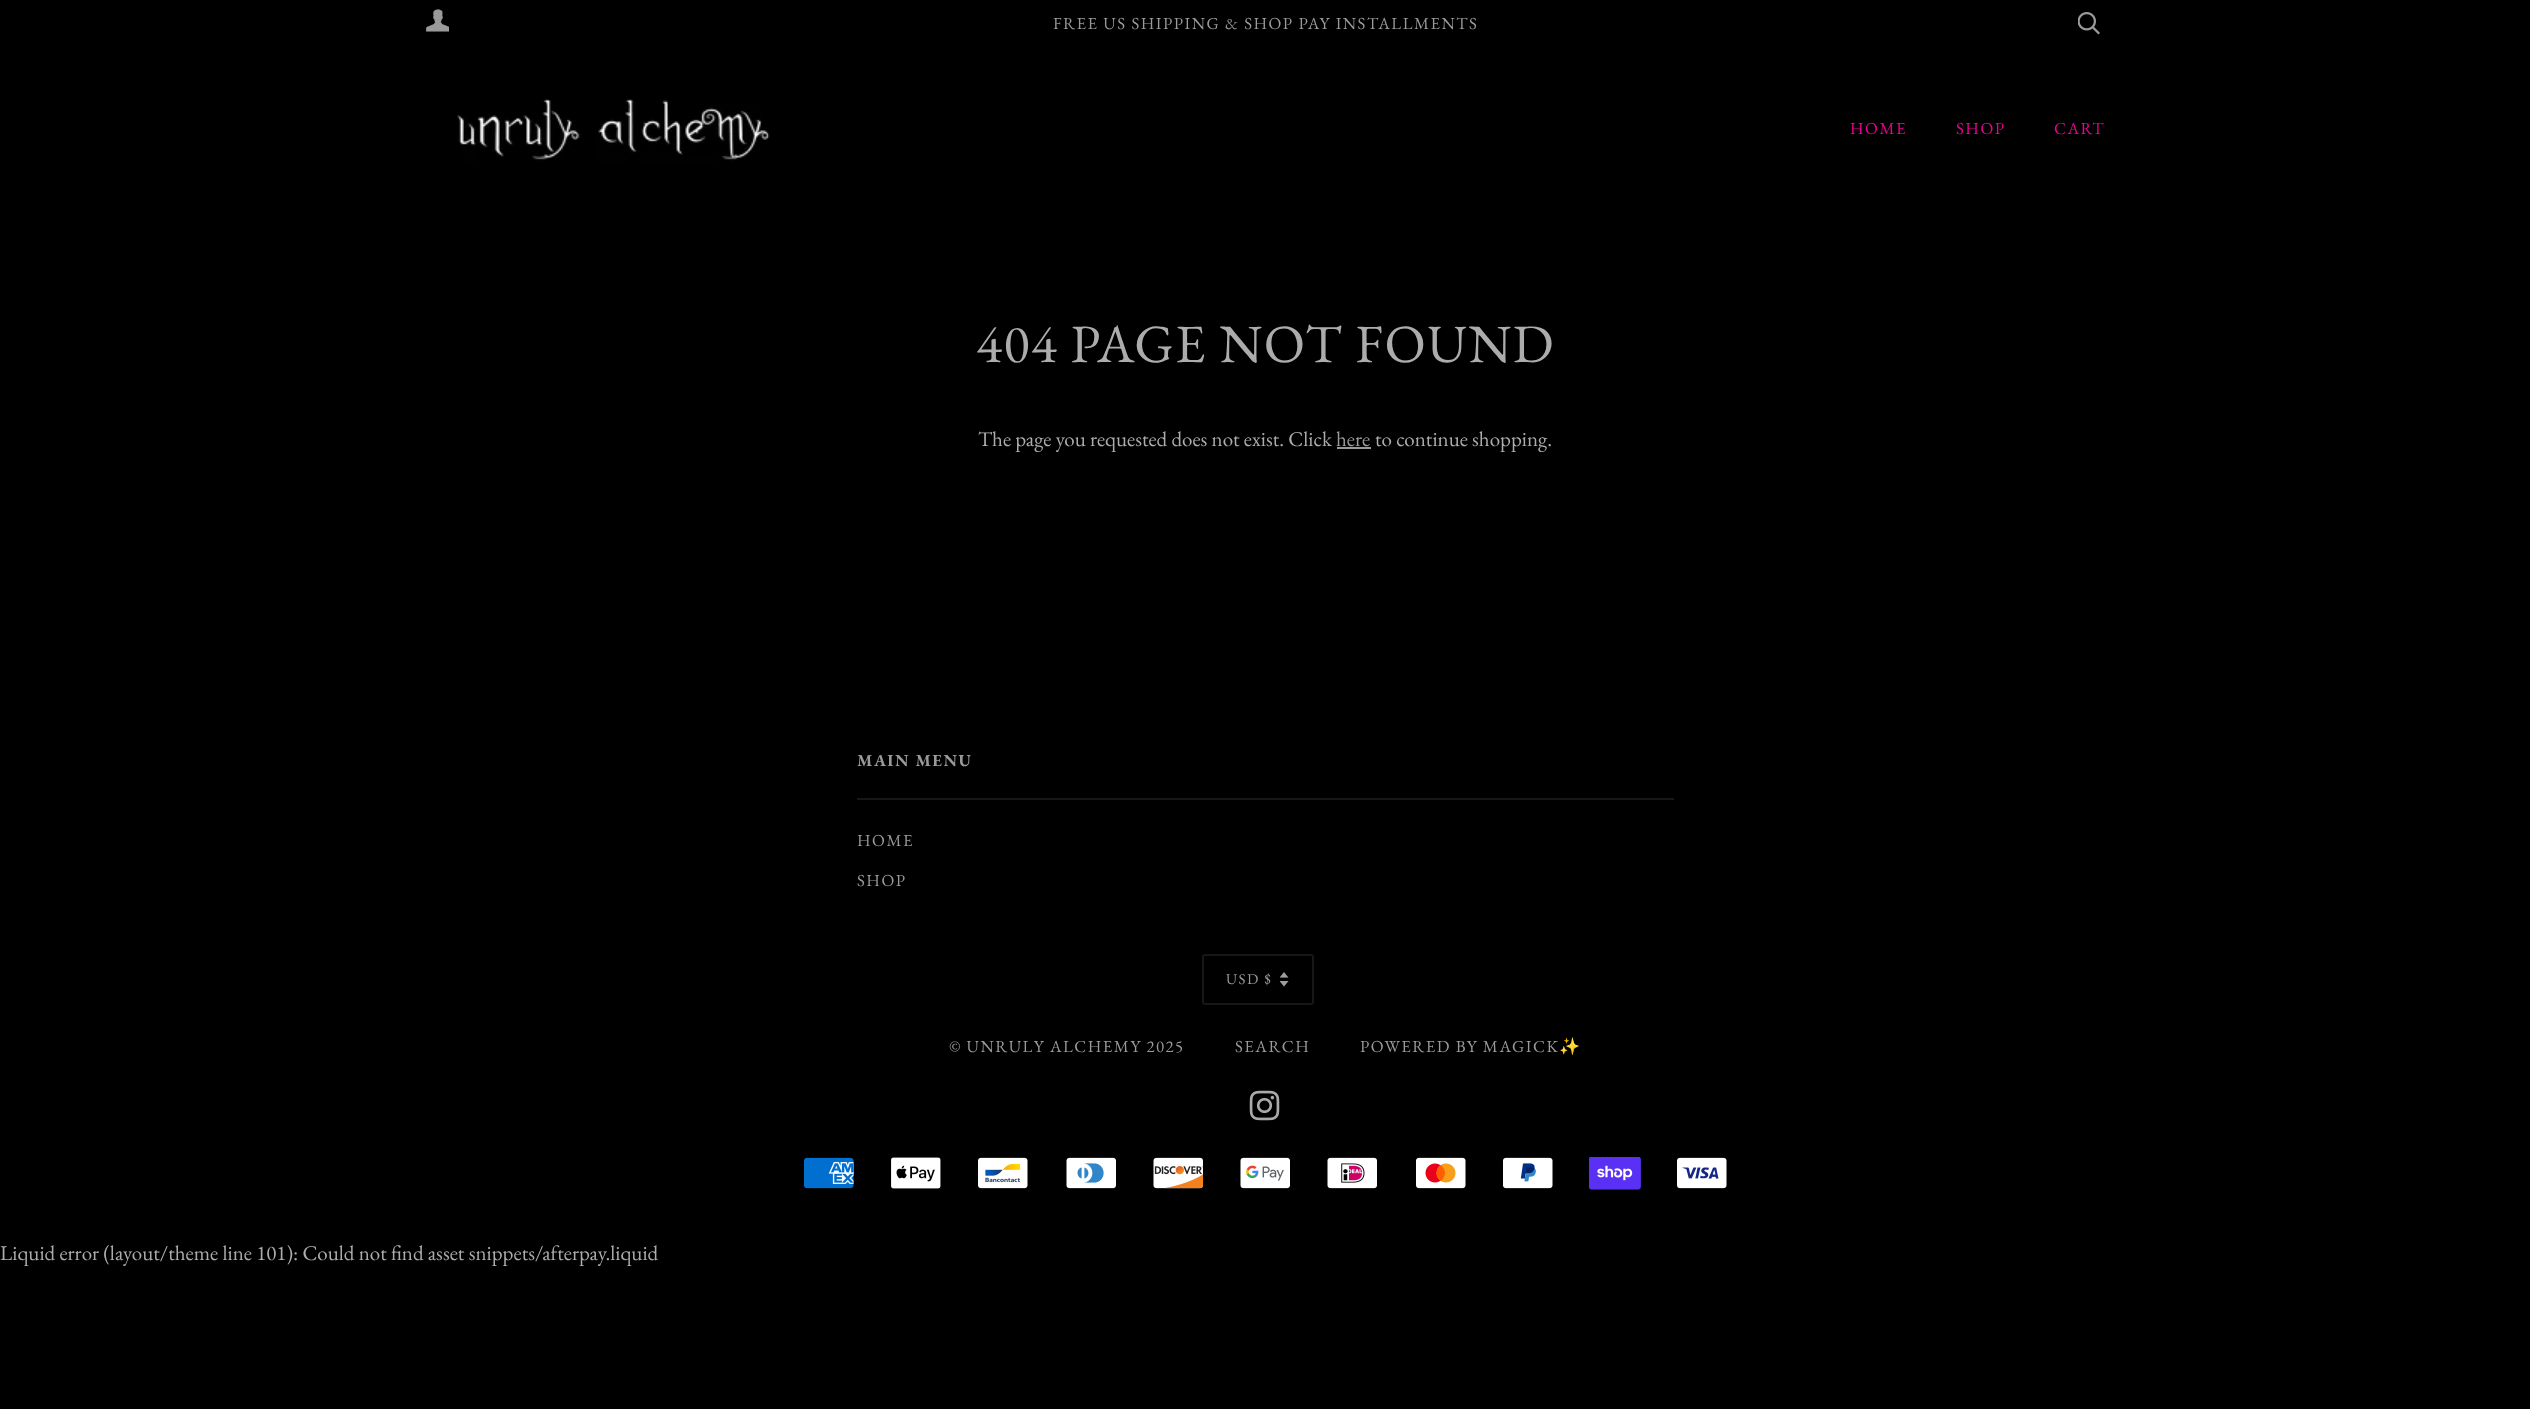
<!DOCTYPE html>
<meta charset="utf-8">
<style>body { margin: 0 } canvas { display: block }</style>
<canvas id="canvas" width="2530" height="1409"></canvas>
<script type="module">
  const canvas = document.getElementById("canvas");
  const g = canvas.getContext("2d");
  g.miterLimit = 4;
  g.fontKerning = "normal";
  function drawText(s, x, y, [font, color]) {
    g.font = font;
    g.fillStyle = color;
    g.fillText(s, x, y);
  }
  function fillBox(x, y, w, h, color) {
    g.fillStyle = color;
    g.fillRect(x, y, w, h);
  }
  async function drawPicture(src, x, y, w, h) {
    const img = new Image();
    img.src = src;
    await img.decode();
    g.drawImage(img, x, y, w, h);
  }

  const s1 = ["16.8px EB Garamond", "#9A9A9A"];
  const s2 = ["16.8px EB Garamond", "#EE0095"];
  const s3 = ["54px EB Garamond", "#ACACAC"];
  const s4 = ["21px EB Garamond", "#ACACAC"];
  const s5 = ["21px EB Garamond", "#9A9A9A"];
  const s6 = ["bold 16.8px EB Garamond", "#9A9A9A"];
  const s7 = ["15px EB Garamond", "#9A9A9A"];
  const s8 = ["16.8px Noto Color Emoji", "#9A9A9A"];

  fillBox(0, 0, 2530, 1409, "#000000");
  await drawPicture("pic1.png", 426, 9, 23, 23);
  g.letterSpacing = "1.5px";
  drawText("FREE US SHIPPING & SHOP PAY INSTALLMENTS", 1053, 29, s1);
  await drawPicture("pic2.png", 2078, 12, 22, 23);
  await drawPicture("pic3.png", 457, 99, 313, 63);
  drawText("HOME", 1850, 134, s2);
  drawText("SHOP", 1956, 134, s2);
  drawText("CART", 2054, 134, s2);
  drawText("404 PAGE NOT FOUND", 976, 362, s3);
  g.letterSpacing = "0px";
  drawText("The page you requested does not exist. Click", 978, 446, s4);
  drawText("here", 1336, 446, s5);
  fillBox(1337, 447, 34, 2, "#9A9A9A");
  drawText("to continue shopping.", 1375, 446, s4);
  g.letterSpacing = "1.5px";
  drawText("MAIN MENU", 857, 766, s6);
  fillBox(857, 798, 817, 2, "#181717");
  drawText("HOME", 857, 846, s1);
  drawText("SHOP", 857, 886, s1);
  g.beginPath();
  g.roundRect(1203, 955, 110, 49, 2);
  g.strokeStyle = "#181717";
  g.lineWidth = 2;
  g.stroke();
  drawText("USD $", 1226, 984, s7);
  await drawPicture("pic4.png", 1280, 972, 9, 15);
  drawText("© UNRULY ALCHEMY 2025", 949, 1052, s1);
  drawText("SEARCH", 1235, 1052, s1);
  drawText("POWERED BY MAGICK", 1360, 1052, s1);
  drawText("✨", 1559, 1052, s8);
  await drawPicture("pic5.png", 1249, 1090, 31, 31);
  await drawPicture("pic6.png", 804, 1157, 50, 32);
  await drawPicture("pic7.png", 891, 1157, 50, 32);
  await drawPicture("pic8.png", 978, 1157, 50, 32);
  await drawPicture("pic9.png", 1066, 1157, 50, 32);
  await drawPicture("pic10.png", 1153, 1157, 51, 32);
  await drawPicture("pic11.png", 1240, 1157, 50, 32);
  await drawPicture("pic12.png", 1327, 1157, 50, 32);
  await drawPicture("pic13.png", 1416, 1157, 50, 32);
  await drawPicture("pic14.png", 1503, 1157, 50, 32);
  await drawPicture("pic15.png", 1589, 1157, 52, 33);
  await drawPicture("pic16.png", 1677, 1157, 50, 32);
  g.letterSpacing = "0px";
  drawText("Liquid error (layout/theme line 101): Could not find asset snippets/afterpay.liquid", 0, 1260, s4);
</script>
